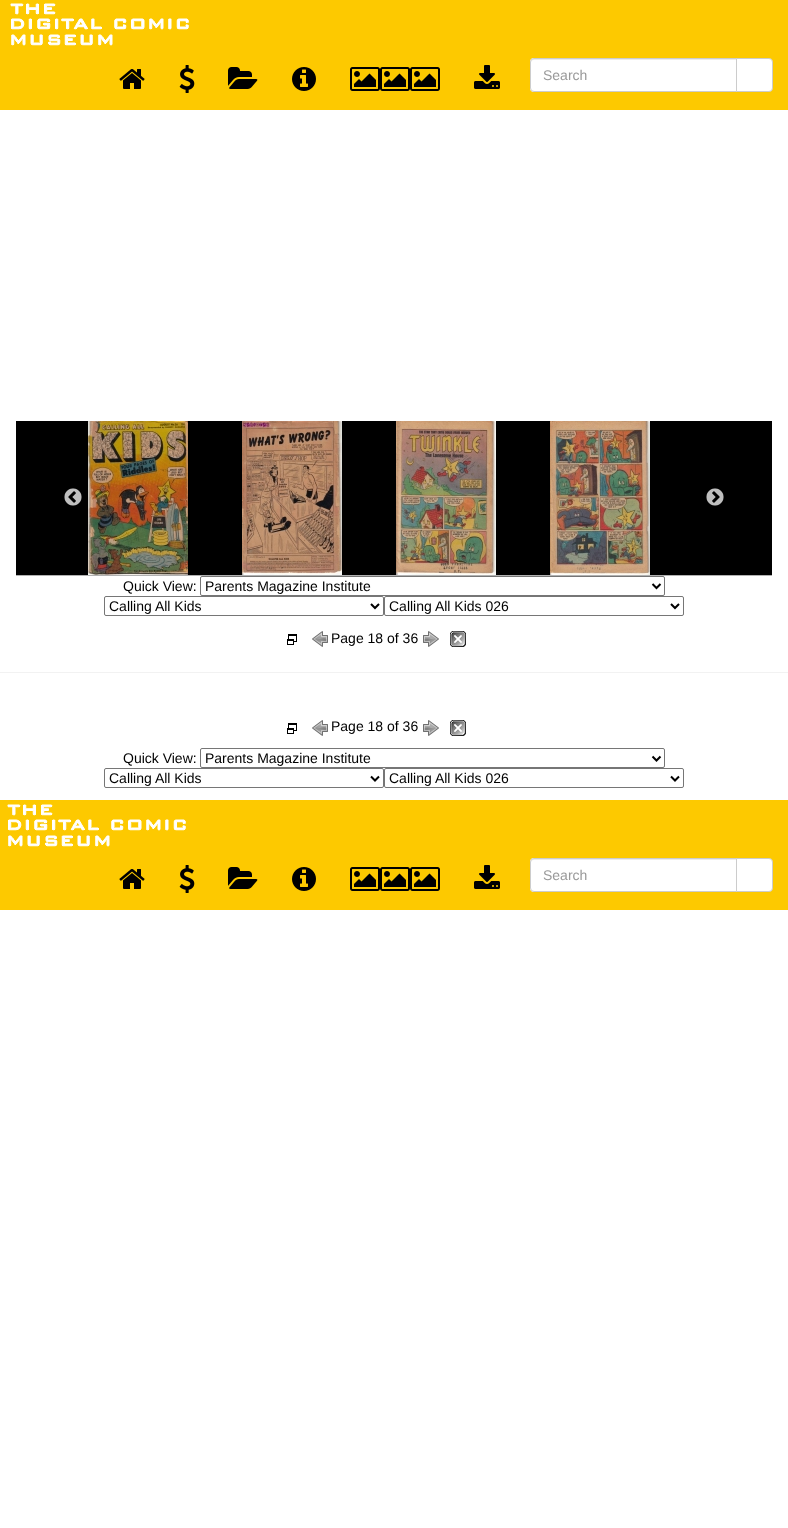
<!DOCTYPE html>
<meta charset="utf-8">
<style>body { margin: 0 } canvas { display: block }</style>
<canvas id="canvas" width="788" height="1528"></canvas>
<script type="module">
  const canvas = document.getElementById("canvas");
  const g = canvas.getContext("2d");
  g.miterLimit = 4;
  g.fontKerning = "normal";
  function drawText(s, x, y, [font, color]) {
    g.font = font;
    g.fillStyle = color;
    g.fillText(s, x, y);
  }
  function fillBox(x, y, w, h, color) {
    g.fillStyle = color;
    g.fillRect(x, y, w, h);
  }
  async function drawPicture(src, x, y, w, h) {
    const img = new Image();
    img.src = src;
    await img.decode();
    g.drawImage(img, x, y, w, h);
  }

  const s1 = ["14px Liberation Sans", "#999999"];
  const s2 = ["14px Liberation Sans", "#000000"];

  fillBox(0, 0, 788, 1528, "#FFFFFF");
  fillBox(0, 0, 788, 110, "#FDC900");
  await drawPicture("pic1.png", 10, 3, 179, 43);
  await drawPicture("pic2.png", 119, 69, 26, 20);
  await drawPicture("pic3.png", 179, 65, 16, 28);
  await drawPicture("pic4.png", 228, 67, 30, 22);
  await drawPicture("pic5.png", 292, 67, 24, 24);
  await drawPicture("pic6.png", 350, 67, 30, 24);
  await drawPicture("pic6.png", 380, 67, 30, 24);
  await drawPicture("pic6.png", 410, 67, 30, 24);
  await drawPicture("pic7.png", 474, 65, 26, 24);
  g.fillStyle = "#FFFFFF";
  g.beginPath();
  g.roundRect(530, 58, 207, 34, [4, 0, 0, 4]);
  g.fill();
  g.fillStyle = "#ECECEC";
  g.beginPath();
  g.moveTo(534, 60);
  g.lineTo(736, 60);
  g.lineTo(736, 59);
  g.lineTo(533, 59);
  g.bezierCurveTo(531, 60, 531, 61, 531, 63);
  g.bezierCurveTo(531, 61, 532, 60, 534, 60);
  g.closePath();
  g.fill();
  g.beginPath();
  g.roundRect(530.5, 58.5, 206, 33, [3.5, 0, 0, 3.5]);
  g.strokeStyle = "#CCCCCC";
  g.stroke();
  drawText("Search", 543, 80, s1);
  g.fillStyle = "#FFFFFF";
  g.beginPath();
  g.roundRect(736.5, 58.5, 36, 33, [0, 3.5, 3.5, 0]);
  g.fill();
  g.stroke();
  g.save();
  g.beginPath();
  g.rect(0, 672, 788, 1);
  g.clip();
  g.fillStyle = "rgba(0, 0, 0, 0.05)";
  g.filter = "blur(0.5px)";
  g.beginPath();
  g.rect(0, 411, 788, 262);
  g.fill();
  g.filter = "none";
  g.restore();
  fillBox(16, 421, 756, 154, "#000000");
  fillBox(16, 575, 756, 1, "#B1B1B1");
  await drawPicture("pic8.png", 64, 488, 18, 18);
  await drawPicture("pic9.png", 88, 421, 100, 154);
  await drawPicture("pic10.png", 242, 421, 100, 154);
  await drawPicture("pic11.png", 396, 421, 100, 154);
  await drawPicture("pic12.png", 550, 421, 100, 154);
  await drawPicture("pic13.png", 706, 488, 18, 18);
  drawText("Quick View:", 123, 591, s2);
  g.beginPath();
  g.roundRect(200.5, 576.5, 464, 19, 1.5);
  g.strokeStyle = "#767676";
  g.stroke();
  g.beginPath();
  g.moveTo(652.5, 584);
  g.lineTo(656.5, 588);
  g.lineTo(660.5, 584);
  g.strokeStyle = "#000000";
  g.lineWidth = 2;
  g.stroke();
  drawText("Parents Magazine Institute", 205, 591, s2);
  g.beginPath();
  g.roundRect(104.5, 596.5, 279, 19, 1.5);
  g.strokeStyle = "#767676";
  g.lineWidth = 1;
  g.stroke();
  g.beginPath();
  g.moveTo(371, 604);
  g.lineTo(375, 608);
  g.lineTo(379, 604);
  g.strokeStyle = "#000000";
  g.lineWidth = 2;
  g.stroke();
  drawText("Calling All Kids", 109, 611, s2);
  g.beginPath();
  g.roundRect(384.5, 596.5, 299, 19, 1.5);
  g.strokeStyle = "#767676";
  g.lineWidth = 1;
  g.stroke();
  g.beginPath();
  g.moveTo(671, 604);
  g.lineTo(675, 608);
  g.lineTo(679, 604);
  g.strokeStyle = "#000000";
  g.lineWidth = 2;
  g.stroke();
  drawText("Calling All Kids 026", 389, 611, s2);
  await drawPicture("pic14.png", 287, 634, 10, 11);
  await drawPicture("pic15.png", 312, 631, 16, 16);
  drawText("Page 18 of 36", 331, 643, s2);
  await drawPicture("pic16.png", 423, 631, 16, 16);
  await drawPicture("pic17.png", 450, 631, 16, 16);
  await drawPicture("pic14.png", 287, 723, 10, 11);
  await drawPicture("pic15.png", 312, 720, 16, 16);
  drawText("Page 18 of 36", 331, 731, s2);
  await drawPicture("pic16.png", 423, 720, 16, 16);
  await drawPicture("pic17.png", 450, 720, 16, 16);
  drawText("Quick View:", 123, 763, s2);
  g.beginPath();
  g.roundRect(200.5, 748.5, 464, 19, 1.5);
  g.strokeStyle = "#767676";
  g.lineWidth = 1;
  g.stroke();
  g.beginPath();
  g.moveTo(652.5, 756.5);
  g.lineTo(656.5, 760.5);
  g.lineTo(660.5, 756.5);
  g.strokeStyle = "#000000";
  g.lineWidth = 2;
  g.stroke();
  drawText("Parents Magazine Institute", 205, 763, s2);
  g.beginPath();
  g.roundRect(104.5, 768.5, 279, 19, 1.5);
  g.strokeStyle = "#767676";
  g.lineWidth = 1;
  g.stroke();
  g.beginPath();
  g.moveTo(371, 776.5);
  g.lineTo(375, 780.5);
  g.lineTo(379, 776.5);
  g.strokeStyle = "#000000";
  g.lineWidth = 2;
  g.stroke();
  drawText("Calling All Kids", 109, 783, s2);
  g.beginPath();
  g.roundRect(384.5, 768.5, 299, 19, 1.5);
  g.strokeStyle = "#767676";
  g.lineWidth = 1;
  g.stroke();
  g.beginPath();
  g.moveTo(671, 776.5);
  g.lineTo(675, 780.5);
  g.lineTo(679, 776.5);
  g.strokeStyle = "#000000";
  g.lineWidth = 2;
  g.stroke();
  drawText("Calling All Kids 026", 389, 783, s2);
  fillBox(0, 800, 788, 110, "#FDC900");
  await drawPicture("pic1.png", 7, 804, 179, 43);
  await drawPicture("pic2.png", 119, 869, 26, 20);
  await drawPicture("pic3.png", 179, 865, 16, 28);
  await drawPicture("pic4.png", 228, 867, 30, 22);
  await drawPicture("pic5.png", 292, 867, 24, 24);
  await drawPicture("pic6.png", 350, 867, 30, 24);
  await drawPicture("pic6.png", 380, 867, 30, 24);
  await drawPicture("pic6.png", 410, 867, 30, 24);
  await drawPicture("pic7.png", 474, 865, 26, 24);
  g.fillStyle = "#FFFFFF";
  g.beginPath();
  g.roundRect(530, 858, 207, 34, [4, 0, 0, 4]);
  g.fill();
  g.fillStyle = "#ECECEC";
  g.beginPath();
  g.moveTo(534, 860);
  g.lineTo(736, 860);
  g.lineTo(736, 859);
  g.lineTo(533, 859);
  g.bezierCurveTo(531, 860, 531, 861, 531, 863);
  g.bezierCurveTo(531, 861, 532, 860, 534, 860);
  g.closePath();
  g.fill();
  g.beginPath();
  g.roundRect(530.5, 858.5, 206, 33, [3.5, 0, 0, 3.5]);
  g.strokeStyle = "#CCCCCC";
  g.lineWidth = 1;
  g.stroke();
  drawText("Search", 543, 880, s1);
  g.fillStyle = "#FFFFFF";
  g.beginPath();
  g.roundRect(736.5, 858.5, 36, 33, [0, 3.5, 3.5, 0]);
  g.fill();
  g.stroke();
</script>
